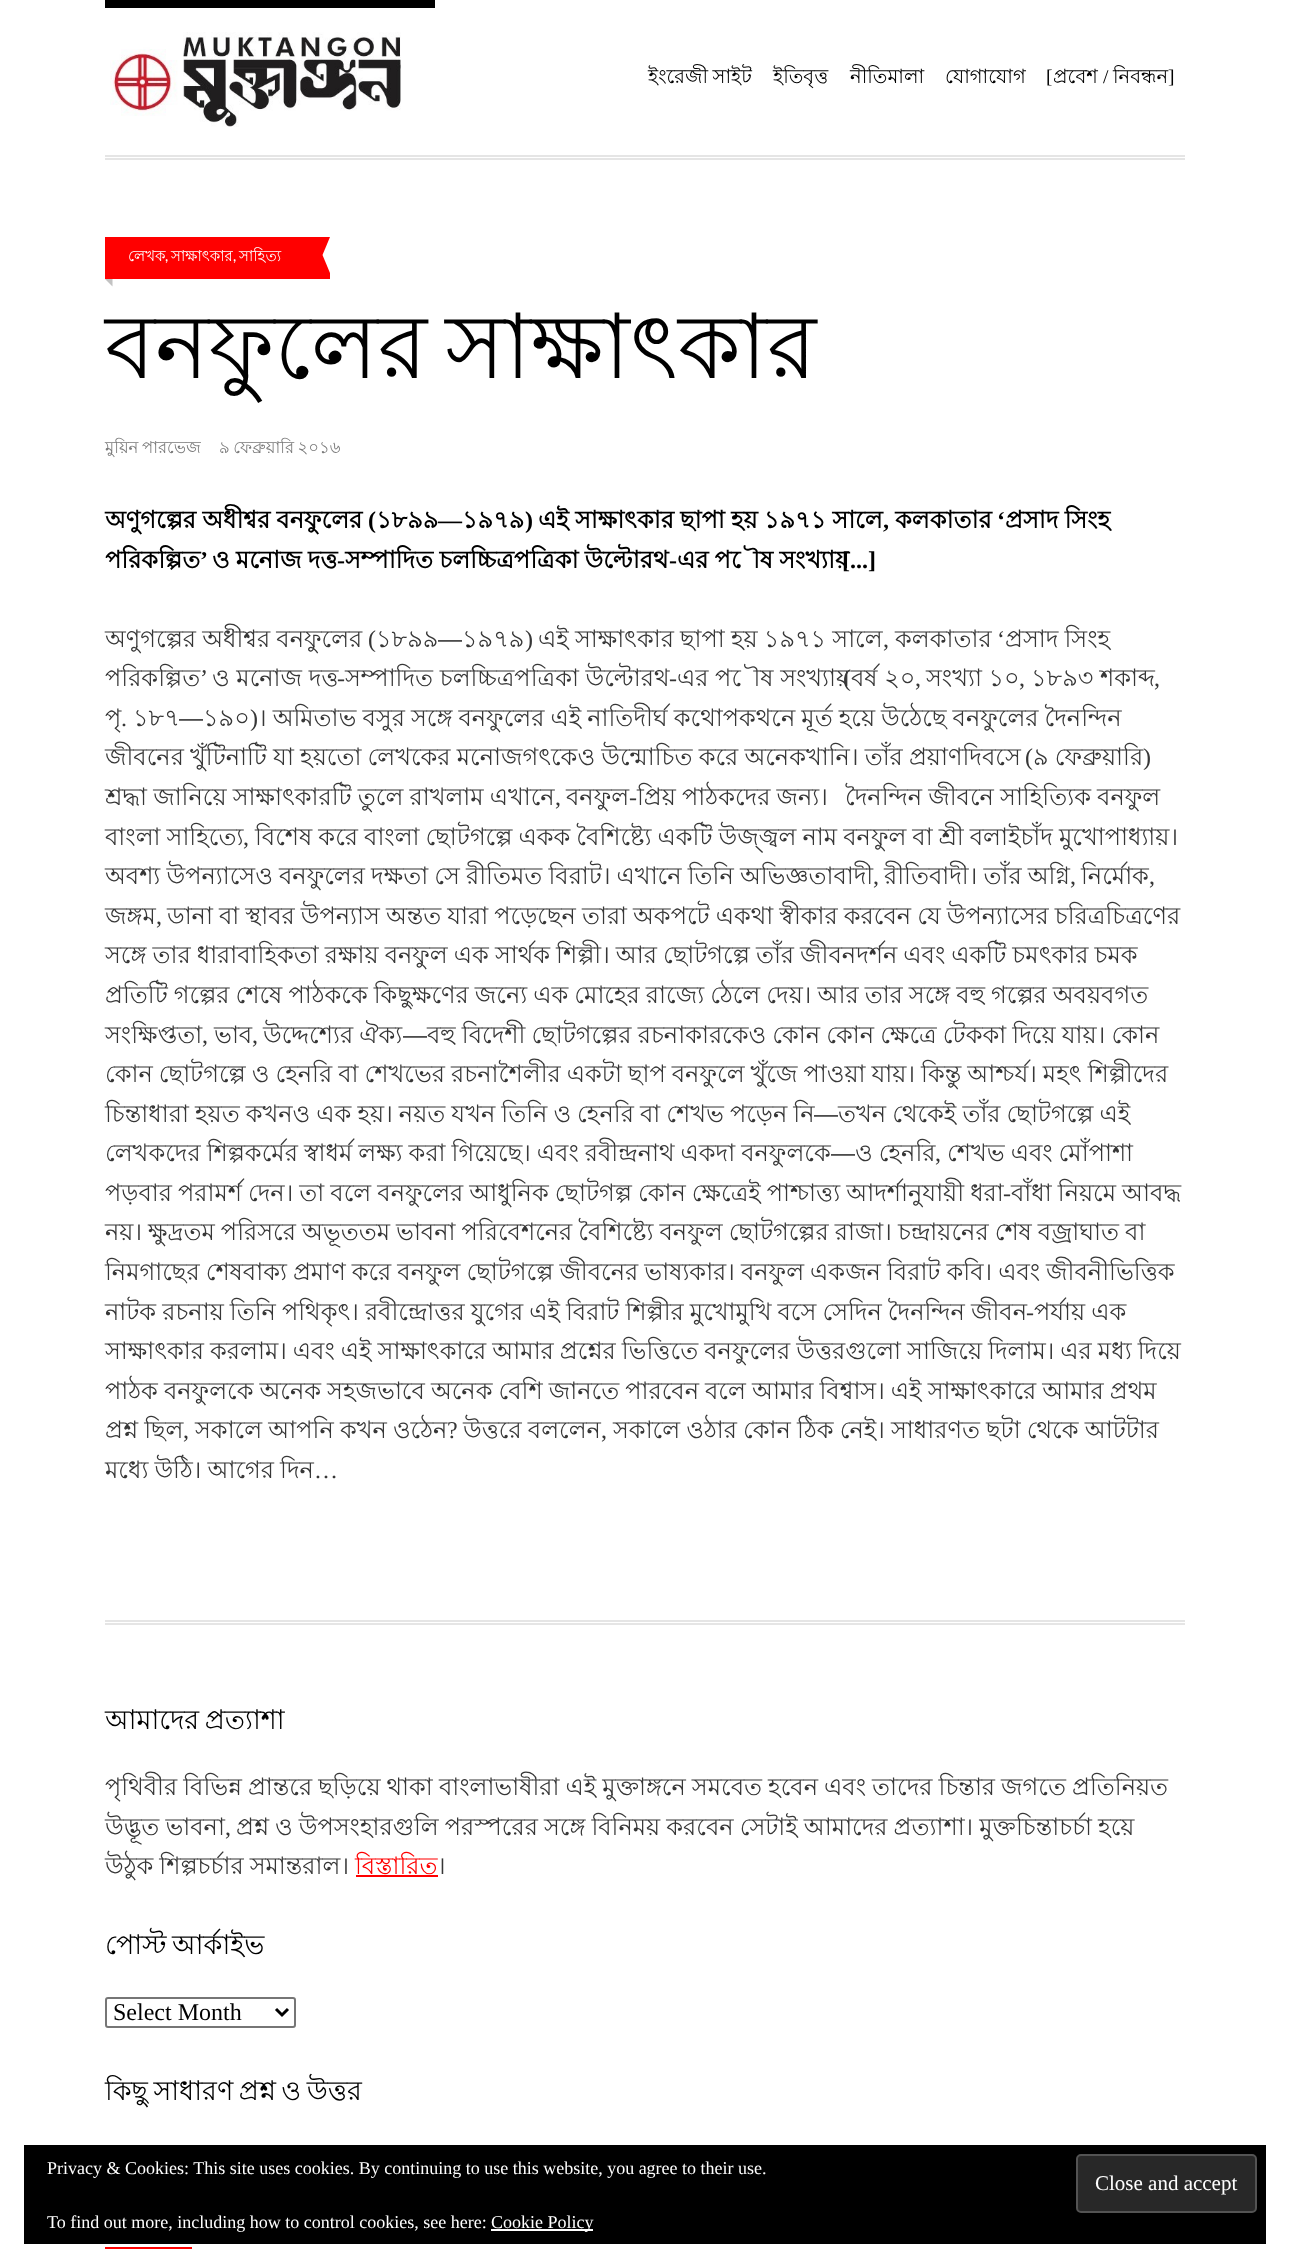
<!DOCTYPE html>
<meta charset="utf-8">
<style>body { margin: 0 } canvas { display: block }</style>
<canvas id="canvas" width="1290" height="2268"></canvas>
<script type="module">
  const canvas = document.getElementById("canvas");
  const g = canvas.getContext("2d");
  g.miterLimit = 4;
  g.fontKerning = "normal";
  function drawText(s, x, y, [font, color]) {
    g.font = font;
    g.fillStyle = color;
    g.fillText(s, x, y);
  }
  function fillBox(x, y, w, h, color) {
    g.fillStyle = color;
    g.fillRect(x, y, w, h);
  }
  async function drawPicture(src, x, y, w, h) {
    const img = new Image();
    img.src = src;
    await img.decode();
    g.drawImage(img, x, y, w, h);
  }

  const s1 = ["19.5px Lohit Bengali", "#000000"];
  const s2 = ["19.5px Tinos", "#000000"];
  const s3 = ["15px Lohit Bengali", "#FFFFFF"];
  const s4 = ["15px Lato", "#FFFFFF"];
  const s5 = ["90px Lohit Bengali", "#000000"];
  const s6 = ["16.5px Lohit Bengali", "#7A7A7A"];
  const s7 = ["bold 24px Lohit Bengali", "#000000"];
  const s8 = ["bold 24px Tinos", "#000000"];
  const s9 = ["24px Lohit Bengali", "#373737"];
  const s10 = ["24px Tinos", "#373737"];
  const s11 = ["24px Liberation Sans", "#373737"];
  const s12 = ["27px Lohit Bengali", "#000000"];
  const s13 = ["24px Lohit Bengali", "#FF0000"];
  const s14 = ["24px Tinos", "#000000"];
  const s15 = ["18px Tinos", "#FFFFFF"];
  const s16 = ["21px Tinos", "#FFFFFF"];

  fillBox(0, 0, 1290, 2268, "#FFFFFF");
  fillBox(105, 155, 1080, 2, "#E5E5E5");
  fillBox(105, 158, 1080, 2, "#E5E5E5");
  fillBox(105, 0, 330, 8, "#000000");
  await drawPicture("pic1.png", 110, 32, 291, 95);
  g.wordSpacing = "-1px";
  drawText("ইংরেজী সাইট", 648, 83, s1);
  g.wordSpacing = "0px";
  drawText("ইতিবৃত্ত", 773, 83, s1);
  drawText("নীতিমালা", 850, 83, s1);
  drawText("যোগাযোগ", 945, 83, s1);
  drawText("[", 1046, 83, s2);
  drawText("প্রবেশ", 1053, 83, s1);
  drawText("/", 1103, 83, s2);
  drawText("নিবন্ধন", 1113, 83, s1);
  drawText("]", 1168, 83, s2);
  fillBox(105, 1620, 1080, 2, "#E5E5E5");
  fillBox(105, 1623, 1080, 2, "#E5E5E5");
  g.fillStyle = "#C2C2C2";
  g.beginPath();
  g.moveTo(112.5, 271.5);
  g.lineTo(112.5, 286.5);
  g.lineTo(105, 279);
  g.closePath();
  g.fill();
  fillBox(105, 237, 225, 42, "#FF0000");
  drawText("লেখক", 128, 261, s3);
  drawText(",", 165, 261, s4);
  drawText("সাক্ষাৎকার", 171, 261, s3);
  drawText(",", 233, 261, s4);
  drawText("সাহিত্য", 239, 261, s3);
  g.beginPath();
  g.moveTo(330, 237);
  g.lineTo(330, 273);
  g.lineTo(322.5, 255);
  g.closePath();
  g.fill();
  g.wordSpacing = "-7px";
  drawText("বনফুলের সাক্ষাৎকার", 105, 378, s5);
  g.wordSpacing = "-1px";
  drawText("মুয়িন পারভেজ", 105, 453, s6);
  drawText("৯ ফেব্রুয়ারি ২০১৬", 219, 453, s6);
  g.wordSpacing = "-0.5px";
  drawText("অণুগল্পের অধীশ্বর বনফুলের", 105, 528, s7);
  g.wordSpacing = "0px";
  drawText("(", 368, 528, s8);
  drawText("১৮৯৯", 376, 528, s7);
  drawText("১৯৭৯", 462, 528, s7);
  drawText(")", 525, 528, s8);
  g.wordSpacing = "-0.5px";
  drawText("এই সাক্ষাৎকার ছাপা হয় ১৯৭১ সালে", 538, 528, s7);
  g.wordSpacing = "0px";
  drawText("কলকাতার", 895, 528, s7);
  drawText("‘", 997, 528, s8);
  g.wordSpacing = "-0.5px";
  drawText("প্রসাদ সিংহ", 1005, 528, s7);
  g.wordSpacing = "0px";
  drawText("—", 438, 528, s8);
  drawText(",", 883, 528, s8);
  drawText("পরিকল্পিত", 105, 568, s7);
  drawText("’", 200, 568, s8);
  g.wordSpacing = "-0.5px";
  drawText("ও মনোজ দত্ত", 212, 568, s7);
  drawText("সম্পাদিত চলচ্চিত্রপত্রিকা উল্টোরথ", 345, 568, s7);
  drawText("এর পৌষ সংখ্যায়", 677, 568, s7);
  g.wordSpacing = "0px";
  drawText("[...]", 842, 568, s8);
  drawText("-", 337, 568, s8);
  drawText("-", 669, 568, s8);
  g.wordSpacing = "-0.5px";
  drawText("অণুগল্পের অধীশ্বর বনফুলের", 105, 647, s9);
  g.wordSpacing = "0px";
  drawText("(", 368, 647, s10);
  drawText("১৮৯৯", 376, 647, s9);
  drawText("১৯৭৯", 462, 647, s9);
  drawText(")", 525, 647, s10);
  g.wordSpacing = "-0.5px";
  drawText("এই সাক্ষাৎকার ছাপা হয় ১৯৭১ সালে", 538, 647, s9);
  g.wordSpacing = "0px";
  drawText("কলকাতার", 895, 647, s9);
  drawText("‘", 997, 647, s10);
  g.wordSpacing = "-0.5px";
  drawText("প্রসাদ সিংহ", 1005, 647, s9);
  g.wordSpacing = "0px";
  drawText("―", 438, 647, s11);
  drawText(",", 883, 647, s10);
  drawText("পরিকল্পিত", 105, 686, s9);
  drawText("’", 200, 686, s10);
  drawText("ও মনোজ দত্ত", 212, 686, s9);
  drawText("সম্পাদিত চলচ্চিত্রপত্রিকা উল্টোরথ", 345, 686, s9);
  drawText("এর পৌষ সংখ্যায়", 677, 686, s9);
  drawText("(", 843, 686, s10);
  drawText("বর্ষ ২০", 851, 686, s9);
  drawText("সংখ্যা ১০", 926, 686, s9);
  drawText("১৮৯৩ শকাব্দ", 1031, 686, s9);
  drawText("-", 337, 686, s10);
  drawText("-", 669, 686, s10);
  drawText(",", 915, 686, s10);
  drawText(",", 1019, 686, s10);
  drawText(",", 1154, 686, s10);
  drawText("পৃ", 105, 726, s9);
  drawText("১৮৭", 133, 726, s9);
  drawText("―", 179, 726, s11);
  drawText("১৯০", 203, 726, s9);
  drawText(")", 250, 726, s10);
  g.wordSpacing = "-0.6px";
  drawText("। অমিতাভ বসুর সঙ্গে বনফুলের এই নাতিদীর্ঘ কথোপকথনে মূর্ত হয়ে উঠেছে বনফুলের দৈনন্দিন", 258, 726, s9);
  g.wordSpacing = "0px";
  drawText(".", 121, 726, s10);
  g.wordSpacing = "-0.5px";
  drawText("জীবনের খুঁটিনাটি যা হয়তো লেখকের মনোজগৎকেও উন্মোচিত করে অনেকখানি। তাঁর প্রয়াণদিবসে", 105, 765, s9);
  g.wordSpacing = "0px";
  drawText("(", 1025, 765, s10);
  g.wordSpacing = "-0.5px";
  drawText("৯ ফেব্রুয়ারি", 1033, 765, s9);
  g.wordSpacing = "0px";
  drawText(")", 1143, 765, s10);
  g.wordSpacing = "-0.5px";
  drawText("শ্রদ্ধা জানিয়ে সাক্ষাৎকারটি তুলে রাখলাম এখানে", 105, 805, s9);
  g.wordSpacing = "0px";
  drawText("বনফুল", 566, 805, s9);
  drawText("-", 629, 805, s10);
  g.wordSpacing = "-0.5px";
  drawText("প্রিয় পাঠকদের জন্য।", 637, 805, s9);
  drawText("দৈনন্দিন জীবনে সাহিত্যিক বনফুল", 845, 805, s9);
  g.wordSpacing = "0px";
  drawText(",", 555, 805, s10);
  g.wordSpacing = "-0.6px";
  drawText("বাংলা সাহিত্যে", 105, 845, s9);
  g.wordSpacing = "0px";
  drawText(",", 243, 845, s10);
  g.wordSpacing = "-0.6px";
  drawText("বিশেষ করে বাংলা ছোটগল্পে একক বৈশিষ্ট্যে একটি উজ্জ্বল নাম বনফুল বা শ্রী বলাইচাঁদ মুখোপাধ্যায়।", 255, 845, s9);
  g.wordSpacing = "-0.5px";
  drawText("অবশ্য উপন্যাসেও বনফুলের দক্ষতা সে রীতিমত বিরাট। এখানে তিনি অভিজ্ঞতাবাদী", 105, 884, s9);
  g.wordSpacing = "0px";
  drawText(",", 873, 884, s10);
  g.wordSpacing = "-0.5px";
  drawText("রীতিবাদী। তাঁর অগ্নি", 884, 884, s9);
  g.wordSpacing = "0px";
  drawText("নির্মোক", 1081, 884, s9);
  drawText(",", 1070, 884, s10);
  drawText(",", 1149, 884, s10);
  drawText("জঙ্গম", 105, 924, s9);
  drawText(",", 156, 924, s10);
  g.wordSpacing = "-0.6px";
  drawText("ডানা বা স্থাবর উপন্যাস অন্তত যারা পড়েছেন তারা অকপটে একথা স্বীকার করবেন যে উপন্যাসের চরিত্রচিত্রণের", 167, 924, s9);
  drawText("সঙ্গে তার ধারাবাহিকতা রক্ষায় বনফুল এক সার্থক শিল্পী। আর ছোটগল্পে তাঁর জীবনদর্শন এবং একটি চমৎকার চমক", 105, 963, s9);
  drawText("প্রতিটি গল্পের শেষে পাঠককে কিছুক্ষণের জন্যে এক মোহের রাজ্যে ঠেলে দেয়। আর তার সঙ্গে বহু গল্পের অবয়বগত", 105, 1003, s9);
  g.wordSpacing = "0px";
  drawText("সংক্ষিপ্ততা", 105, 1043, s9);
  drawText("ভাব", 214, 1043, s9);
  g.wordSpacing = "-0.5px";
  drawText("উদ্দেশ্যের ঐক্য", 263, 1043, s9);
  g.wordSpacing = "0px";
  drawText("―", 403, 1043, s11);
  g.wordSpacing = "-0.5px";
  drawText("বহু বিদেশী ছোটগল্পের রচনাকারকেও কোন কোন ক্ষেত্রে টেককা দিয়ে যায়। কোন", 427, 1043, s9);
  g.wordSpacing = "0px";
  drawText(",", 202, 1043, s10);
  drawText(",", 252, 1043, s10);
  g.wordSpacing = "-0.6px";
  drawText("কোন ছোটগল্পে ও হেনরি বা শেখভের রচনাশৈলীর একটা ছাপ বনফুলে খুঁজে পাওয়া যায়। কিন্তু আশ্চর্য। মহৎ শিল্পীদের", 105, 1082, s9);
  drawText("চিন্তাধারা হয়ত কখনও এক হয়। নয়ত যখন তিনি ও হেনরি বা শেখভ পড়েন নি", 105, 1122, s9);
  g.wordSpacing = "0px";
  drawText("―", 814, 1122, s11);
  g.wordSpacing = "-0.6px";
  drawText("তখন থেকেই তাঁর ছোটগল্পে এই", 838, 1122, s9);
  drawText("লেখকদের শিল্পকর্মের স্বাধর্ম লক্ষ্য করা গিয়েছে। এবং রবীন্দ্রনাথ একদা বনফুলকে", 105, 1161, s9);
  g.wordSpacing = "0px";
  drawText("―", 831, 1161, s11);
  g.wordSpacing = "-0.6px";
  drawText("ও হেনরি", 855, 1161, s9);
  drawText("শেখভ এবং মোঁপাশা", 947, 1161, s9);
  g.wordSpacing = "0px";
  drawText(",", 935, 1161, s10);
  g.wordSpacing = "-0.6px";
  drawText("পড়বার পরামর্শ দেন। তা বলে বনফুলের আধুনিক ছোটগল্প কোন ক্ষেত্রেই পাশ্চাত্ত্য আদর্শানুযায়ী ধরা", 105, 1201, s9);
  g.wordSpacing = "0px";
  drawText("-", 1003, 1201, s10);
  g.wordSpacing = "-0.6px";
  drawText("বাঁধা নিয়মে আবদ্ধ", 1011, 1201, s9);
  drawText("নয়। ক্ষুদ্রতম পরিসরে অভূততম ভাবনা পরিবেশনের বৈশিষ্ট্যে বনফুল ছোটগল্পের রাজা। চন্দ্রায়নের শেষ বজ্রাঘাত বা", 105, 1240, s9);
  drawText("নিমগাছের শেষবাক্য প্রমাণ করে বনফুল ছোটগল্পে জীবনের ভাষ্যকার। বনফুল একজন বিরাট কবি। এবং জীবনীভিত্তিক", 105, 1280, s9);
  drawText("নাটক রচনায় তিনি পথিকৃৎ। রবীন্দ্রোত্তর যুগের এই বিরাট শিল্পীর মুখোমুখি বসে সেদিন দৈনন্দিন জীবন", 105, 1320, s9);
  g.wordSpacing = "0px";
  drawText("-", 1026, 1320, s10);
  g.wordSpacing = "-0.6px";
  drawText("পর্যায় এক", 1034, 1320, s9);
  drawText("সাক্ষাৎকার করলাম। এবং এই সাক্ষাৎকারে আমার প্রশ্নের ভিত্তিতে বনফুলের উত্তরগুলো সাজিয়ে দিলাম। এর মধ্য দিয়ে", 105, 1359, s9);
  drawText("পাঠক বনফুলকে অনেক সহজভাবে অনেক বেশি জানতে পারবেন বলে আমার বিশ্বাস। এই সাক্ষাৎকারে আমার প্রথম", 105, 1399, s9);
  g.wordSpacing = "-0.5px";
  drawText("প্রশ্ন ছিল", 105, 1438, s9);
  g.wordSpacing = "0px";
  drawText(",", 183, 1438, s10);
  g.wordSpacing = "-0.5px";
  drawText("সকালে আপনি কখন ওঠেন", 195, 1438, s9);
  g.wordSpacing = "0px";
  drawText("?", 447, 1438, s10);
  g.wordSpacing = "-0.5px";
  drawText("উত্তরে বললেন", 463, 1438, s9);
  g.wordSpacing = "0px";
  drawText(",", 601, 1438, s10);
  g.wordSpacing = "-0.5px";
  drawText("সকালে ওঠার কোন ঠিক নেই। সাধারণত ছটা থেকে আটটার", 613, 1438, s9);
  g.wordSpacing = "-0.6px";
  drawText("মধ্যে উঠি। আগের দিন", 105, 1478, s9);
  g.wordSpacing = "0px";
  drawText("…", 314, 1478, s10);
  g.wordSpacing = "-2px";
  drawText("আমাদের প্রত্যাশা", 105, 1729, s12);
  g.wordSpacing = "-0.6px";
  drawText("পৃথিবীর বিভিন্ন প্রান্তরে ছড়িয়ে থাকা বাংলাভাষীরা এই মুক্তাঙ্গনে সমবেত হবেন এবং তাদের চিন্তার জগতে প্রতিনিয়ত", 105, 1795, s9);
  drawText("উদ্ভূত ভাবনা", 105, 1835, s9);
  g.wordSpacing = "0px";
  drawText(",", 225, 1835, s10);
  g.wordSpacing = "-0.6px";
  drawText("প্রশ্ন ও উপসংহারগুলি পরস্পরের সঙ্গে বিনিময় করবেন সেটাই আমাদের প্রত্যাশা। মুক্তচিন্তাচর্চা হয়ে", 236, 1835, s9);
  drawText("উঠুক শিল্পচর্চার সমান্তরাল।", 105, 1874, s9);
  g.wordSpacing = "0px";
  drawText("বিস্তারিত", 355, 1874, s13);
  fillBox(356, 1875, 82, 2, "#FF0000");
  drawText("।", 437, 1874, s9);
  g.wordSpacing = "-2px";
  drawText("পোস্ট আর্কাইভ", 105, 1954, s12);
  g.beginPath();
  g.roundRect(106, 1998, 189, 29, 2);
  g.strokeStyle = "#767676";
  g.lineWidth = 2;
  g.stroke();
  g.beginPath();
  g.moveTo(276, 2009);
  g.lineTo(282, 2015);
  g.lineTo(288, 2009);
  g.strokeStyle = "#000000";
  g.lineWidth = 3;
  g.stroke();
  g.wordSpacing = "0px";
  drawText("Select Month", 113, 2020, s14);
  g.wordSpacing = "-2px";
  drawText("কিছু সাধারণ প্রশ্ন ও উত্তর", 105, 2100, s12);
  fillBox(105, 2247, 87, 2, "#FF0000");
  fillBox(24, 2145, 1242, 99, "#000000");
  g.wordSpacing = "0px";
  drawText("Privacy & Cookies: This site uses cookies. By continuing to use this website, you agree to their use.", 47, 2174, s15);
  g.fillStyle = "#282828";
  g.beginPath();
  g.roundRect(1077, 2155, 179, 57, 4);
  g.fill();
  g.strokeStyle = "#535353";
  g.lineWidth = 2;
  g.stroke();
  drawText("Close and accept", 1095, 2190, s16);
  drawText("To find out more, including how to control cookies, see here:", 47, 2228, s15);
  fillBox(491, 2229, 102, 2, "#FFFFFF");
  drawText("Cookie Policy", 491, 2228, s15);
</script>
